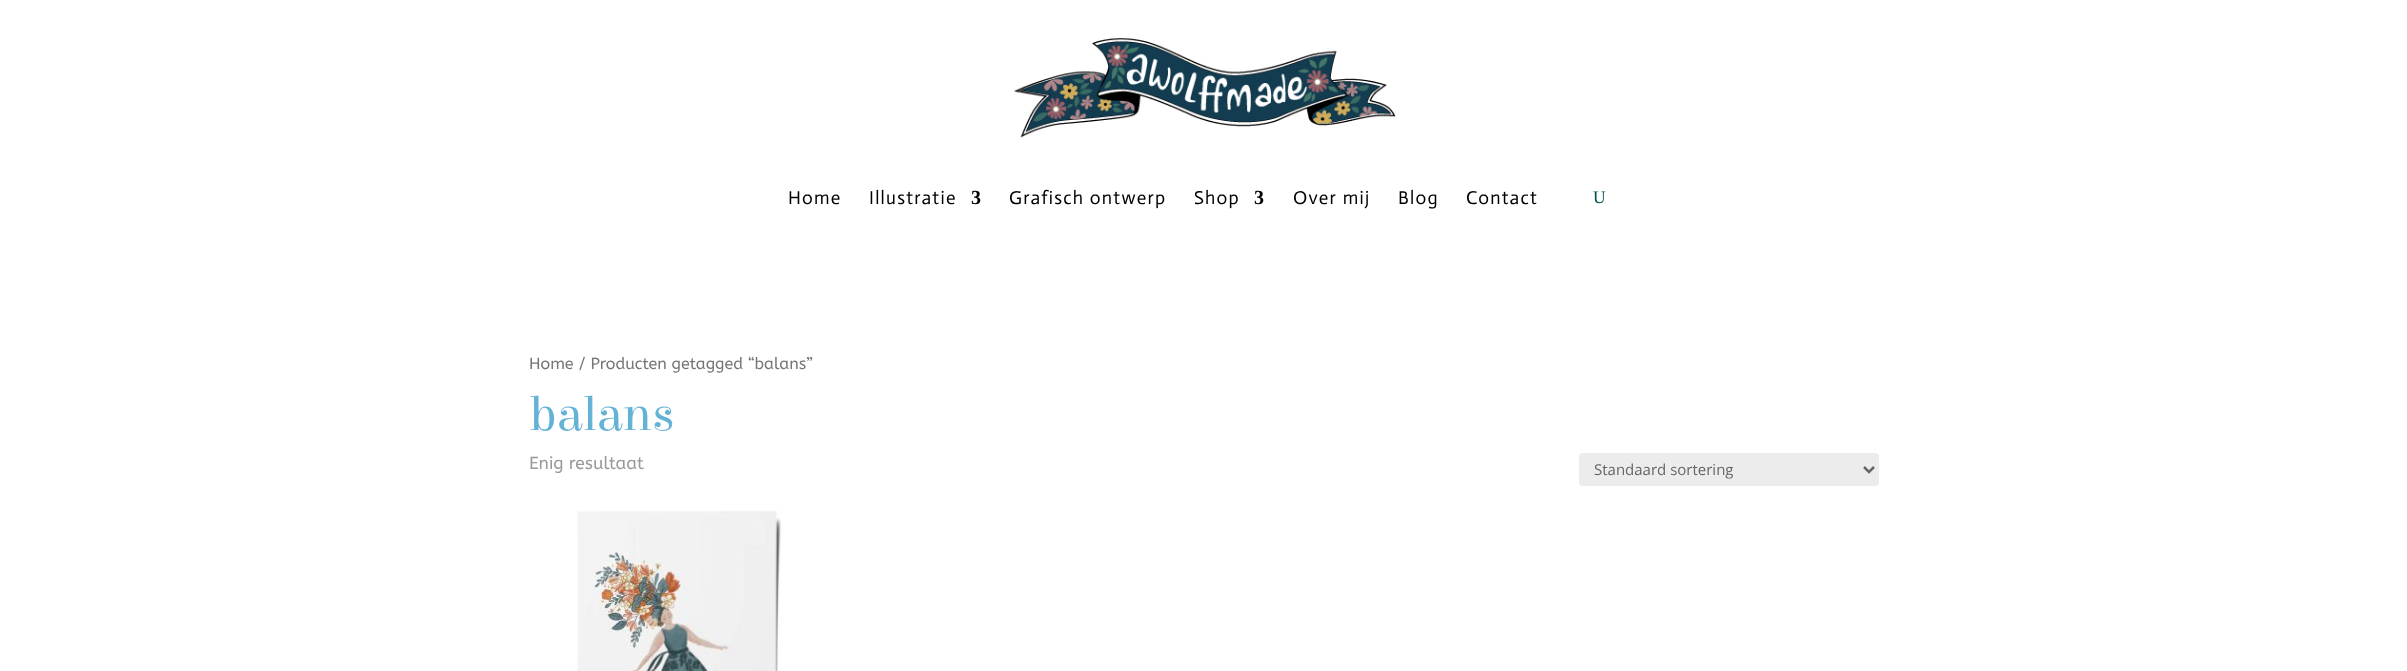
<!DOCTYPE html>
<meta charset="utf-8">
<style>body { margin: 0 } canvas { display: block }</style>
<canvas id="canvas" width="2407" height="671"></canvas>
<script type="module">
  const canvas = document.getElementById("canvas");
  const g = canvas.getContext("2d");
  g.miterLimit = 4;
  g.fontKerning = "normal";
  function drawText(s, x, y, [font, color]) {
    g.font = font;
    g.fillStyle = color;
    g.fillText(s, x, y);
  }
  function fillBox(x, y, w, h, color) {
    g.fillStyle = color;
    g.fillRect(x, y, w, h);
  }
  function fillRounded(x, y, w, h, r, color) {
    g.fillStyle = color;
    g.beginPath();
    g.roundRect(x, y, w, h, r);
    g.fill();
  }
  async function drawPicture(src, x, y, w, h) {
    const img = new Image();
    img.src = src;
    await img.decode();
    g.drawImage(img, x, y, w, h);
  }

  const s1 = ["18.75px Actor", "#000000"];
  const s2 = ["bold 20px Liberation Serif", "#000000"];
  const s3 = ["17.5px Liberation Serif", "#00514C"];
  const s4 = ["16.1px ABeeZee", "#767676"];
  const s5 = ["49px Elsie", "#64B3D6"];
  const s6 = ["17.5px ABeeZee", "#999999"];
  const s7 = ["15px Open Sans", "#666666"];

  fillBox(0, 0, 2407, 671, "#FFFFFF");
  await drawPicture("pic1.png", 1014, 38, 382, 100);
  g.letterSpacing = "1.25px";
  drawText("Home", 788, 204, s1);
  drawText("Illustratie", 869, 204, s1);
  drawText("3", 971, 204, s2);
  drawText("Grafisch ontwerp", 1009, 204, s1);
  drawText("Shop", 1194, 204, s1);
  drawText("3", 1254, 204, s2);
  drawText("Over mij", 1293, 204, s1);
  drawText("Blog", 1398, 204, s1);
  drawText("Contact", 1466, 204, s1);
  g.letterSpacing = "0px";
  drawText("U", 1593, 203, s3);
  drawText("Home / Producten getagged “balans”", 529, 369, s4);
  drawText("balans", 529, 430, s5);
  drawText("Enig resultaat", 529, 469, s6);
  fillRounded(1579, 453, 300, 33, 4, "#ECECEC");
  g.beginPath();
  g.moveTo(1864, 467);
  g.lineTo(1869, 472);
  g.lineTo(1874, 467);
  g.strokeStyle = "#666666";
  g.lineWidth = 2.5;
  g.stroke();
  drawText("Standaard sortering", 1594, 475, s7);
  await drawPicture("pic2.png", 577, 510, 205, 161);
</script>
